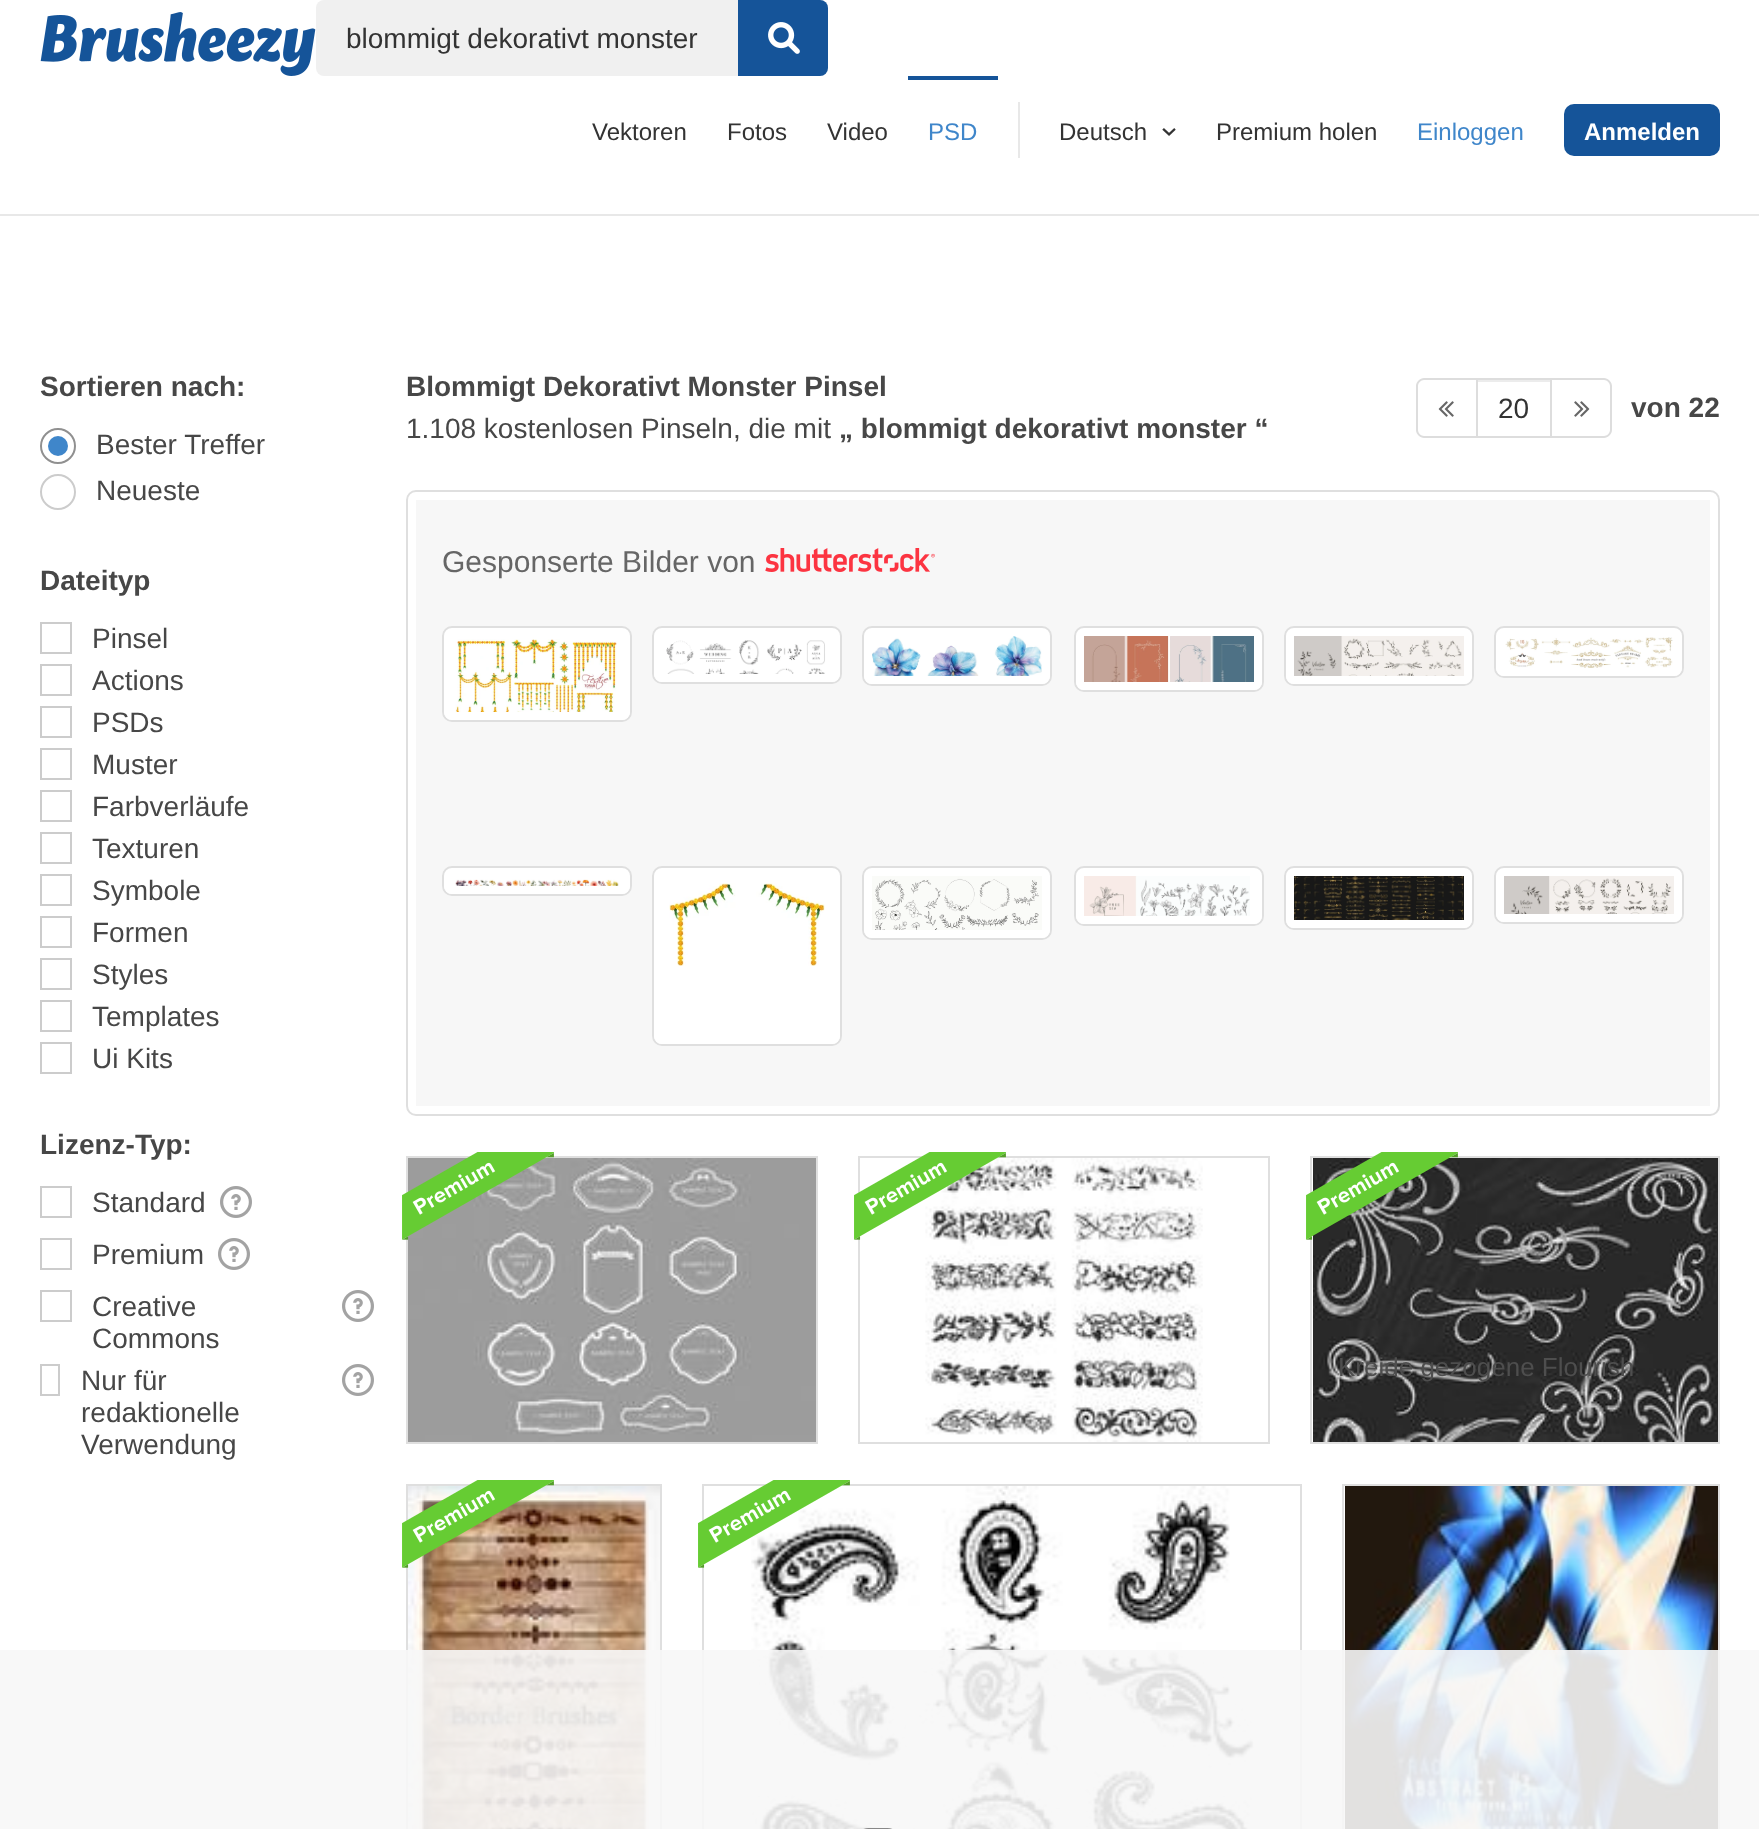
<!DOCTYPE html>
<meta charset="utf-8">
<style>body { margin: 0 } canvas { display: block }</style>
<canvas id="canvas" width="1759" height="1829"></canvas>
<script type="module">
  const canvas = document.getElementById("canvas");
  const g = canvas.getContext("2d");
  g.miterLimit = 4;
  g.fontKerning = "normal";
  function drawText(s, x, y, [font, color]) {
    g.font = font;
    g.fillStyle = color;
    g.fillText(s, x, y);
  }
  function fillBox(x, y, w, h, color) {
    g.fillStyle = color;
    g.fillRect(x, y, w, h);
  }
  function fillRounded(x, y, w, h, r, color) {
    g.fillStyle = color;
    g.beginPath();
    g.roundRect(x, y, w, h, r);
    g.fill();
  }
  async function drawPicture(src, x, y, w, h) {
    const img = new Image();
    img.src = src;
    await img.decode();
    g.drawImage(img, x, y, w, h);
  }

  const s1 = ["28px Liberation Sans", "#333333"];
  const s2 = ["24px Liberation Sans", "#333333"];
  const s3 = ["24px Liberation Sans", "#3F86CA"];
  const s4 = ["bold 24px Liberation Sans", "#FFFFFF"];
  const s5 = ["bold 28px Liberation Sans", "#474747"];
  const s6 = ["28px Liberation Sans", "#474747"];
  const s7 = ["30px Liberation Sans", "#666666"];
  const s8 = ["26px Liberation Sans", "#4E4E4E"];

  fillBox(0, 0, 1759, 1829, "#FFFFFF");
  fillBox(0, 214, 1759, 2, "#E8E8E8");
  await drawPicture("pic1.png", 40, 12, 276, 64);
  fillRounded(316, 0, 512, 76, 8, "#F0F0F0");
  drawText("blommigt dekorativt monster", 346, 48, s1);
  g.fillStyle = "#155499";
  g.beginPath();
  g.roundRect(738, 0, 90, 76, [0, 8, 8, 0]);
  g.fill();
  await drawPicture("pic2.png", 768, 22, 32, 32);
  drawText("Vektoren", 592, 140, s2);
  drawText("Fotos", 727, 140, s2);
  drawText("Video", 827, 140, s2);
  fillBox(908, 76, 90, 4, "#155499");
  drawText("PSD", 928, 140, s3);
  fillBox(1018, 102, 2, 56, "#E8E8E8");
  drawText("Deutsch", 1059, 140, s2);
  await drawPicture("pic3.png", 1162, 128, 14, 8);
  drawText("Premium holen", 1216, 140, s2);
  drawText("Einloggen", 1417, 140, s3);
  fillRounded(1564, 104, 156, 52, 10, "#155499");
  drawText("Anmelden", 1584, 140, s4);
  drawText("Sortieren nach:", 40, 396, s5);
  g.beginPath();
  g.arc(58, 446, 17, 0, Math.PI * 2);
  g.strokeStyle = "#909090";
  g.lineWidth = 2;
  g.stroke();
  g.fillStyle = "#3F86CA";
  g.beginPath();
  g.arc(58, 446, 10, 0, Math.PI * 2);
  g.fill();
  drawText("Bester Treffer", 96, 454, s6);
  g.beginPath();
  g.arc(58, 492, 17, 0, Math.PI * 2);
  g.strokeStyle = "#CCCCCC";
  g.stroke();
  drawText("Neueste", 96, 500, s6);
  drawText("Dateityp", 40, 590, s5);
  g.strokeRect(41, 623, 30, 30);
  drawText("Pinsel", 92, 648, s6);
  g.strokeRect(41, 665, 30, 30);
  drawText("Actions", 92, 690, s6);
  g.strokeRect(41, 707, 30, 30);
  drawText("PSDs", 92, 732, s6);
  g.strokeRect(41, 749, 30, 30);
  drawText("Muster", 92, 774, s6);
  g.strokeRect(41, 791, 30, 30);
  drawText("Farbverläufe", 92, 816, s6);
  g.strokeRect(41, 833, 30, 30);
  drawText("Texturen", 92, 858, s6);
  g.strokeRect(41, 875, 30, 30);
  drawText("Symbole", 92, 900, s6);
  g.strokeRect(41, 917, 30, 30);
  drawText("Formen", 92, 942, s6);
  g.strokeRect(41, 959, 30, 30);
  drawText("Styles", 92, 984, s6);
  g.strokeRect(41, 1001, 30, 30);
  drawText("Templates", 92, 1026, s6);
  g.strokeRect(41, 1043, 30, 30);
  drawText("Ui Kits", 92, 1068, s6);
  drawText("Lizenz-Typ:", 40, 1154, s5);
  g.strokeRect(41, 1187, 30, 30);
  drawText("Standard", 92, 1212, s6);
  await drawPicture("pic4.png", 220, 1186, 32, 32);
  g.strokeRect(41, 1239, 30, 30);
  drawText("Premium", 92, 1264, s6);
  await drawPicture("pic4.png", 218, 1238, 32, 32);
  g.strokeRect(41, 1291, 30, 30);
  drawText("Creative", 92, 1316, s6);
  drawText("Commons", 92, 1348, s6);
  await drawPicture("pic4.png", 342, 1290, 32, 32);
  g.strokeRect(41, 1365, 18, 30);
  drawText("Nur für", 81, 1390, s6);
  drawText("redaktionelle", 81, 1422, s6);
  drawText("Verwendung", 81, 1454, s6);
  await drawPicture("pic4.png", 342, 1364, 32, 32);
  drawText("Blommigt Dekorativt Monster Pinsel", 406, 396, s5);
  drawText("1.108 kostenlosen Pinseln, die mit", 406, 438, s6);
  drawText("„ blommigt dekorativt monster “", 839, 438, s5);
  g.fillStyle = "#DDDDDD";
  g.beginPath();
  g.moveTo(1424, 378);
  g.lineTo(1476, 378);
  g.lineTo(1476, 438);
  g.lineTo(1424, 438);
  g.bezierCurveTo(1420, 438, 1416, 434, 1416, 430);
  g.lineTo(1416, 386);
  g.bezierCurveTo(1416, 382, 1420, 378, 1424, 378);
  g.closePath();
  g.moveTo(1424, 380);
  g.lineTo(1476, 380);
  g.lineTo(1476, 436);
  g.lineTo(1424, 436);
  g.bezierCurveTo(1421, 436, 1418, 433, 1418, 430);
  g.lineTo(1418, 386);
  g.bezierCurveTo(1418, 383, 1421, 380, 1424, 380);
  g.closePath();
  g.fill("evenodd");
  await drawPicture("pic5.png", 1438, 401, 16, 16);
  fillBox(1478, 380, 72, 2, "#ECECEC");
  g.strokeStyle = "#DDDDDD";
  g.strokeRect(1477, 379, 74, 58);
  drawText("20", 1498, 418, s1);
  g.fillStyle = "#DDDDDD";
  g.beginPath();
  g.moveTo(1552, 378);
  g.lineTo(1604, 378);
  g.bezierCurveTo(1608, 378, 1612, 382, 1612, 386);
  g.lineTo(1612, 430);
  g.bezierCurveTo(1612, 434, 1608, 438, 1604, 438);
  g.lineTo(1552, 438);
  g.closePath();
  g.moveTo(1552, 380);
  g.lineTo(1604, 380);
  g.bezierCurveTo(1607, 380, 1610, 383, 1610, 386);
  g.lineTo(1610, 430);
  g.bezierCurveTo(1610, 433, 1607, 436, 1604, 436);
  g.lineTo(1552, 436);
  g.closePath();
  g.fill("evenodd");
  await drawPicture("pic6.png", 1574, 401, 16, 16);
  drawText("von 22", 1631, 417, s5);
  g.beginPath();
  g.roundRect(407, 491, 1312, 624, 9);
  g.strokeStyle = "#DFDFDF";
  g.stroke();
  fillBox(416, 500, 1294, 606, "#F7F7F7");
  drawText("Gesponserte Bilder von", 442, 572, s7);
  await drawPicture("pic7.png", 765, 548, 170, 24);
  g.fillStyle = "#FFFFFF";
  g.beginPath();
  g.roundRect(443, 627, 188, 94, 9);
  g.fill();
  g.stroke();
  await drawPicture("pic8.png", 455, 639, 162, 73);
  g.beginPath();
  g.roundRect(444, 712, 186, 8, [0, 0, 8, 8]);
  g.fill();
  g.beginPath();
  g.roundRect(653, 627, 188, 56, 9);
  g.fill();
  g.stroke();
  await drawPicture("pic9.png", 666, 640, 162, 34);
  g.beginPath();
  g.roundRect(654, 674, 186, 8, [0, 0, 8, 8]);
  g.fill();
  g.beginPath();
  g.roundRect(863, 627, 188, 58, 9);
  g.fill();
  g.stroke();
  await drawPicture("pic10.png", 872, 636, 170, 40);
  g.beginPath();
  g.roundRect(864, 676, 186, 8, [0, 0, 8, 8]);
  g.fill();
  g.beginPath();
  g.roundRect(1075, 627, 188, 64, 9);
  g.fill();
  g.stroke();
  await drawPicture("pic11.png", 1084, 636, 170, 46);
  g.beginPath();
  g.roundRect(1076, 682, 186, 8, [0, 0, 8, 8]);
  g.fill();
  g.beginPath();
  g.roundRect(1285, 627, 188, 58, 9);
  g.fill();
  g.stroke();
  await drawPicture("pic12.png", 1294, 636, 170, 40);
  g.beginPath();
  g.roundRect(1286, 676, 186, 8, [0, 0, 8, 8]);
  g.fill();
  g.beginPath();
  g.roundRect(1495, 627, 188, 50, 9);
  g.fill();
  g.stroke();
  await drawPicture("pic13.png", 1505, 637, 168, 31);
  g.beginPath();
  g.roundRect(1496, 668, 186, 8, [0, 0, 8, 8]);
  g.fill();
  g.beginPath();
  g.roundRect(443, 867, 188, 28, 9);
  g.fill();
  g.stroke();
  await drawPicture("pic14.png", 455, 879, 164, 7);
  g.beginPath();
  g.roundRect(444, 886, 186, 8, [0, 0, 8, 8]);
  g.fill();
  g.beginPath();
  g.roundRect(653, 867, 188, 178, 9);
  g.fill();
  g.stroke();
  await drawPicture("pic15.png", 669, 883, 156, 83);
  g.beginPath();
  g.roundRect(654, 1036, 186, 8, [0, 0, 8, 8]);
  g.fill();
  g.beginPath();
  g.roundRect(863, 867, 188, 72, 9);
  g.fill();
  g.stroke();
  await drawPicture("pic16.png", 872, 876, 170, 54);
  g.beginPath();
  g.roundRect(864, 930, 186, 8, [0, 0, 8, 8]);
  g.fill();
  g.beginPath();
  g.roundRect(1075, 867, 188, 58, 9);
  g.fill();
  g.stroke();
  await drawPicture("pic17.png", 1084, 876, 166, 40);
  g.beginPath();
  g.roundRect(1076, 916, 186, 8, [0, 0, 8, 8]);
  g.fill();
  g.beginPath();
  g.roundRect(1285, 867, 188, 62, 9);
  g.fill();
  g.stroke();
  await drawPicture("pic18.png", 1294, 876, 170, 44);
  g.beginPath();
  g.roundRect(1286, 920, 186, 8, [0, 0, 8, 8]);
  g.fill();
  g.beginPath();
  g.roundRect(1495, 867, 188, 56, 9);
  g.fill();
  g.stroke();
  await drawPicture("pic19.png", 1504, 876, 170, 38);
  g.beginPath();
  g.roundRect(1496, 914, 186, 8, [0, 0, 8, 8]);
  g.fill();
  g.strokeRect(407, 1157, 410, 286);
  await drawPicture("pic21.png", 408, 1158, 408, 284);
  await drawPicture("pic20.png", 402, 1152, 152, 88);
  g.strokeRect(859, 1157, 410, 286);
  await drawPicture("pic23.png", 925, 1158, 278, 284);
  await drawPicture("pic22.png", 854, 1152, 152, 88);
  g.strokeRect(1311, 1157, 408, 286);
  await drawPicture("pic25.png", 1313, 1158, 405, 284);
  await drawPicture("pic24.png", 1306, 1152, 152, 88);
  drawText("Kreide gezogene Flourish", 1338, 1376, s8);
  g.strokeRect(407, 1485, 254, 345);
  await drawPicture("pic27.png", 408, 1486, 252, 343);
  await drawPicture("pic26.png", 402, 1480, 152, 88);
  g.strokeRect(703, 1485, 598, 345);
  await drawPicture("pic29.png", 751, 1486, 503, 343);
  await drawPicture("pic28.png", 698, 1480, 152, 88);
  g.strokeRect(1343, 1485, 376, 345);
  await drawPicture("pic30.png", 1345, 1486, 373, 343);
  fillBox(0, 1650, 1759, 179, "rgba(247, 247, 247, 0.9)");
  g.beginPath();
  g.roundRect(857, 1829, 42, 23, 21);
  g.strokeStyle = "rgba(247, 247, 247, 0.75)";
  g.stroke();
  g.beginPath();
  g.roundRect(857, 1829, 42, 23, 21);
  g.strokeStyle = "#888888";
  g.stroke();
</script>
